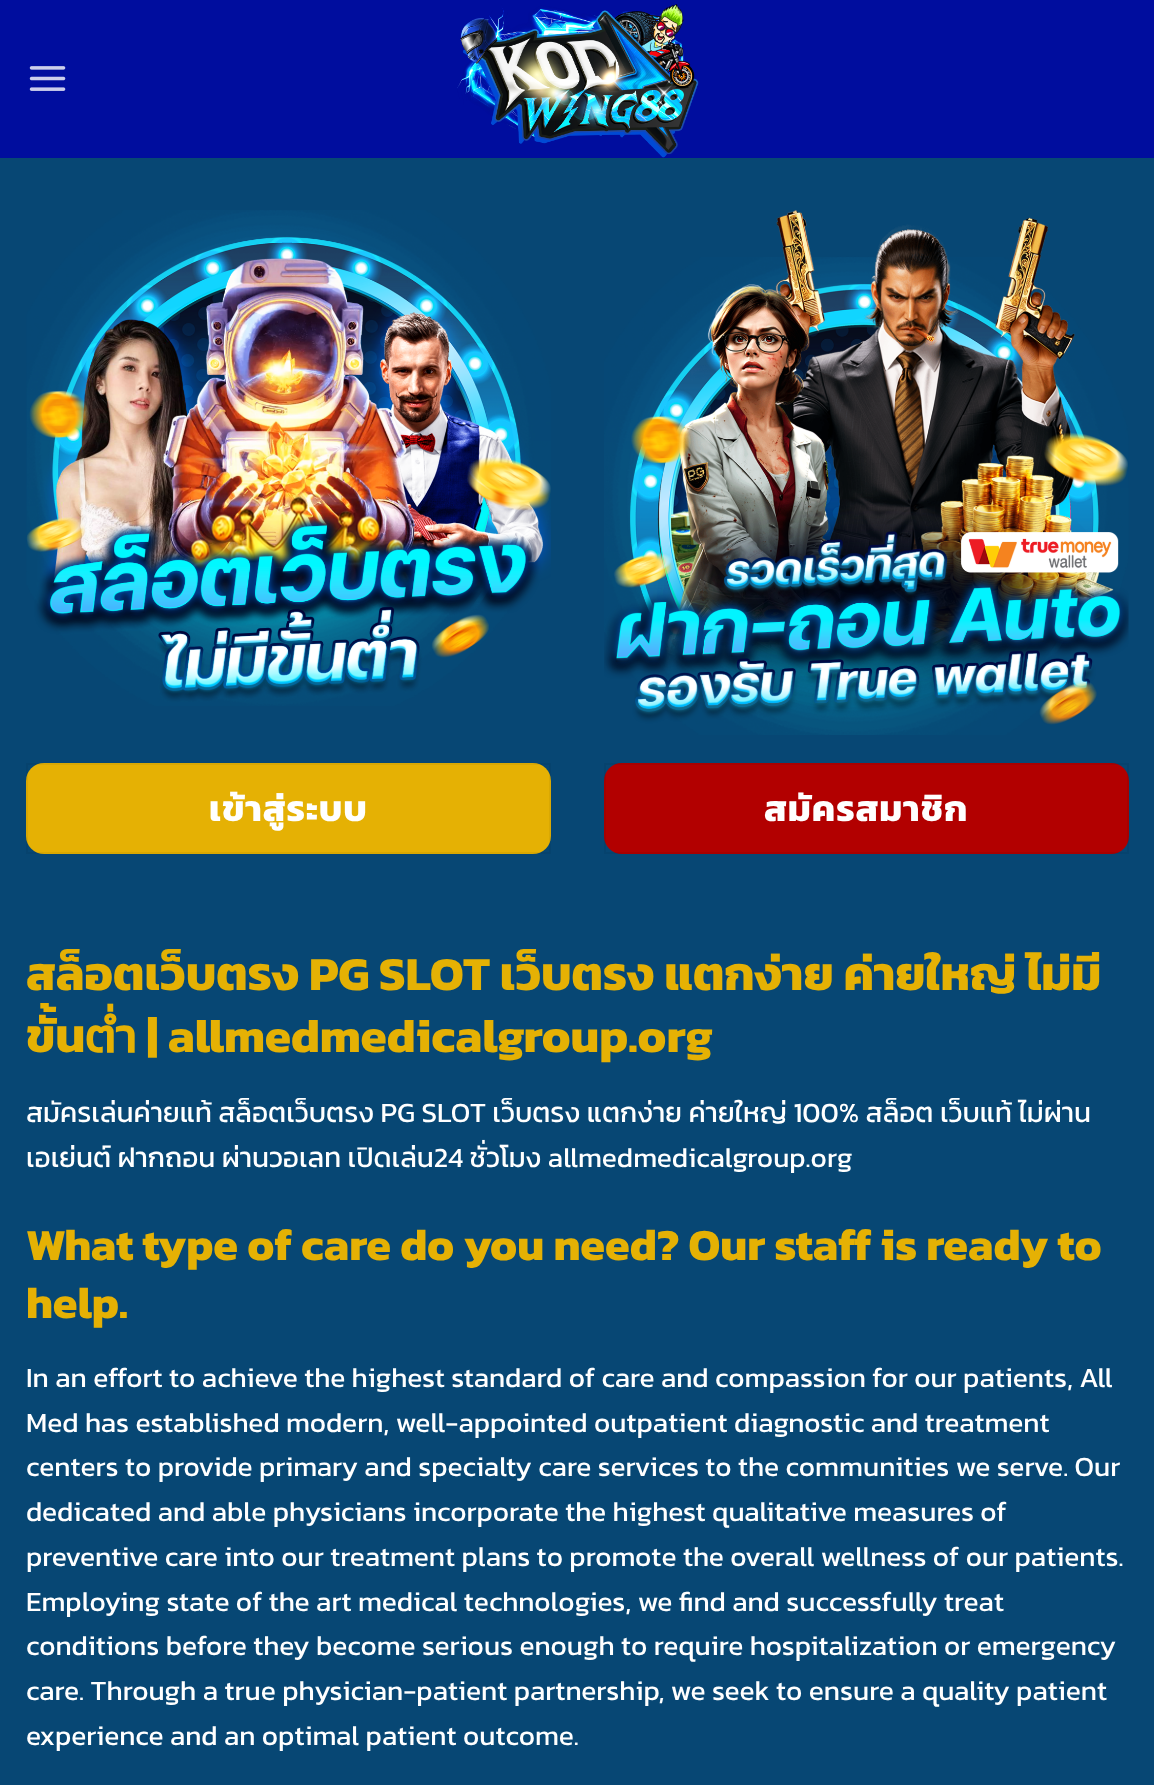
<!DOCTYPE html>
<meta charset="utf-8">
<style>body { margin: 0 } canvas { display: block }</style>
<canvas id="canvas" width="1154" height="1785"></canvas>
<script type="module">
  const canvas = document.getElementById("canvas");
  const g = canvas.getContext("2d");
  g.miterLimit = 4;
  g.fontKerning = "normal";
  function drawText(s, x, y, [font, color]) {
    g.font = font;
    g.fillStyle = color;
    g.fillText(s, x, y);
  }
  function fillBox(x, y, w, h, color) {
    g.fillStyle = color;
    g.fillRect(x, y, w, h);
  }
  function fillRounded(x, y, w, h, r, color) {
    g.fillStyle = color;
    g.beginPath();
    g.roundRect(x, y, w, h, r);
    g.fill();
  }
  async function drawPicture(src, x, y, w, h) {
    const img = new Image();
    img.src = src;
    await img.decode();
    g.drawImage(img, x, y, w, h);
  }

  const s1 = ["bold 36.5px Kanit", "#FFFFFF"];
  const s2 = ["bold 47.6px Kanit", "#E5B104"];
  const s3 = ["28px Kanit", "#FFFFFF"];
  const s4 = ["bold 44.8px Kanit", "#E5B104"];

  fillBox(0, 0, 1154, 1785, "#074774");
  fillBox(0, 0, 1154, 158, "#000D9E");
  await drawPicture("pic1.png", 29, 66, 37, 25);
  await drawPicture("pic2.png", 457, 4, 242, 154);
  await drawPicture("pic3.png", 26, 210, 525, 496);
  fillRounded(26, 763, 525, 91, 18, "#E5B104");
  g.strokeStyle = "rgba(0, 0, 0, 0.05)";
  g.lineWidth = 2;
  g.strokeRect(27, 764, 523, 89);
  g.letterSpacing = "1px";
  drawText("เข้าสู่ระบบ", 209, 821, s1);
  await drawPicture("pic4.png", 604, 210, 525, 525);
  fillRounded(604, 763, 525, 91, 18, "#B20000");
  g.strokeRect(605, 764, 523, 89);
  drawText("สมัครสมาชิก", 764, 821, s1);
  g.letterSpacing = "0px";
  drawText("สล็อตเว็บตรง PG SLOT เว็บตรง แตกง่าย ค่ายใหญ่ ไม่มี", 26, 990, s2);
  drawText("ขั้นต่ำ | allmedmedicalgroup.org", 26, 1052, s2);
  drawText("สมัครเล่นค่ายแท้ สล็อตเว็บตรง PG SLOT เว็บตรง แตกง่าย ค่ายใหญ่ 100% สล็อต เว็บแท้ ไม่ผ่าน", 26, 1122, s3);
  drawText("เอเย่นต์ ฝากถอน ผ่านวอเลท เปิดเล่น24 ชั่วโมง allmedmedicalgroup.org", 26, 1167, s3);
  drawText("What type of care do you need? Our staff is ready to", 26, 1260, s4);
  drawText("help.", 26, 1318, s4);
  drawText("In an effort to achieve the highest standard of care and compassion for our patients, All", 26, 1387, s3);
  drawText("Med has established modern, well-appointed outpatient diagnostic and treatment", 26, 1432, s3);
  drawText("centers to provide primary and specialty care services to the communities we serve. Our", 26, 1476, s3);
  drawText("dedicated and able physicians incorporate the highest qualitative measures of", 26, 1521, s3);
  drawText("preventive care into our treatment plans to promote the overall wellness of our patients.", 26, 1566, s3);
  drawText("Employing state of the art medical technologies, we find and successfully treat", 26, 1611, s3);
  drawText("conditions before they become serious enough to require hospitalization or emergency", 26, 1655, s3);
  drawText("care. Through a true physician-patient partnership, we seek to ensure a quality patient", 26, 1700, s3);
  drawText("experience and an optimal patient outcome.", 26, 1745, s3);
</script>
